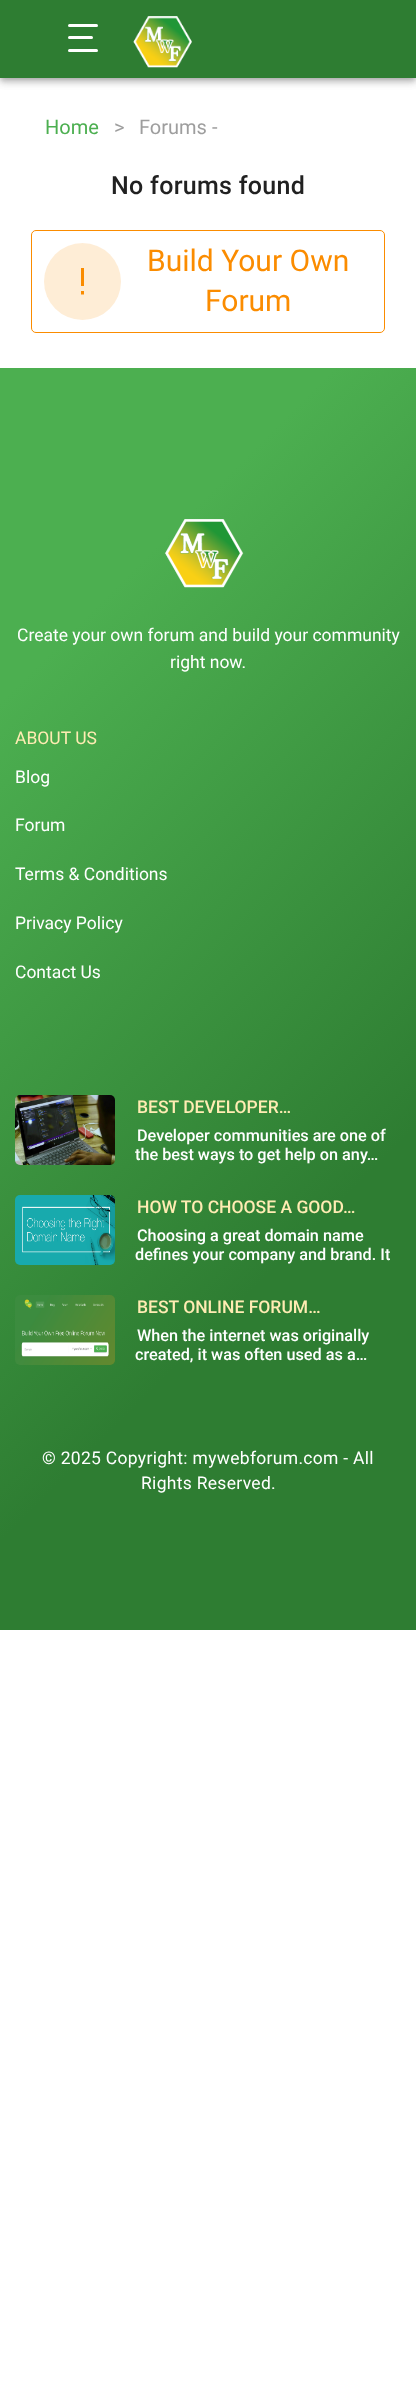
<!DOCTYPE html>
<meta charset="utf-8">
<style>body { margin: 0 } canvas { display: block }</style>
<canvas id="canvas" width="416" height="2407"></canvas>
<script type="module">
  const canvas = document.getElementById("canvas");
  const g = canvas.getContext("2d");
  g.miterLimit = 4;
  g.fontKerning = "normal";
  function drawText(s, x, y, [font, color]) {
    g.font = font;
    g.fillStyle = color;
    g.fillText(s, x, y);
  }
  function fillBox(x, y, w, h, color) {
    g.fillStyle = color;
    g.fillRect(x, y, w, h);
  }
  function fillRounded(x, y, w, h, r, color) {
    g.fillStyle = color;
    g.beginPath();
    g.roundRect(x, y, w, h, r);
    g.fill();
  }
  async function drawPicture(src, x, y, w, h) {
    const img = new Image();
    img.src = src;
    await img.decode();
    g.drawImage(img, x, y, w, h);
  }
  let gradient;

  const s1 = ["20px Roboto", "#4CAF50"];
  const s2 = ["20px Roboto", "#9E9E9E"];
  const s3 = ["500 25px Roboto", "#212121"];
  const s4 = ["30px Roboto", "#FB8C00"];
  const s5 = ["17.5px Roboto", "#FFFFFF"];
  const s6 = ["17.5px Roboto", "#FFECB3"];
  const s7 = ["500 17.5px Roboto", "#FFECB3"];
  const s8 = ["500 16.25px Roboto", "#FFFFFF"];

  fillBox(0, 0, 416, 2407, "#FFFFFF");
  g.fillStyle = "rgba(0, 0, 0, 0.12)";
  g.filter = "blur(6px)";
  g.beginPath();
  g.rect(0, 1, 416, 78);
  g.fill();
  g.filter = "none";
  g.fillStyle = "rgba(0, 0, 0, 0.14)";
  g.filter = "blur(3px)";
  g.beginPath();
  g.rect(0, 5, 416, 78);
  g.fill();
  g.filter = "none";
  g.fillStyle = "rgba(0, 0, 0, 0.2)";
  g.filter = "blur(2.5px)";
  g.beginPath();
  g.rect(1, 4, 414, 75);
  g.fill();
  g.filter = "none";
  fillBox(0, 0, 416, 78, "#2E7D32");
  fillRounded(68, 36, 25, 3, 1.5, "#FFFFFF");
  fillRounded(68, 24, 30, 3, 1.5, "#FFFFFF");
  fillRounded(68, 49, 30, 3, 1.5, "#FFFFFF");
  await drawPicture("pic1.png", 133, 16, 59, 52);
  drawText("Home", 45, 134, s1);
  drawText(">", 114, 134, s2);
  drawText("Forums -", 139, 134, s2);
  g.letterSpacing = "0.3px";
  drawText("No forums found", 111, 194, s3);
  g.beginPath();
  g.roundRect(31.5, 230.5, 353, 102, 4.5);
  g.strokeStyle = "#FB8C00";
  g.stroke();
  g.fillStyle = "#FB8C00";
  g.beginPath();
  g.moveTo(81, 268);
  g.lineTo(84, 268);
  g.lineTo(84, 286);
  g.lineTo(81, 286);
  g.closePath();
  g.moveTo(84, 291);
  g.lineTo(84, 294.5);
  g.lineTo(81, 294.5);
  g.lineTo(81, 291);
  g.closePath();
  g.fill();
  g.fillStyle = "rgba(251, 140, 0, 0.16)";
  g.beginPath();
  g.arc(82.5, 281.5, 38.5, 0, Math.PI * 2);
  g.fill();
  g.letterSpacing = "0px";
  drawText("Build Your Own", 147, 271, s4);
  drawText("Forum", 205, 311, s4);
  gradient = g.createLinearGradient(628, 1418, -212, 579);
  gradient.addColorStop(0.3, "#2E7D32");
  gradient.addColorStop(0.8, "#4CAF50");
  g.fillStyle = gradient;
  g.fillRect(0, 368, 416, 1262);
  await drawPicture("pic2.png", 164, 519, 80, 69);
  drawText("Create your own forum and build your community", 17, 641, s5);
  drawText("right now.", 170, 668, s5);
  drawText("ABOUT US", 15, 744, s6);
  drawText("Blog", 15, 783, s5);
  drawText("Forum", 15, 831, s5);
  drawText("Terms & Conditions", 15, 880, s5);
  drawText("Privacy Policy", 15, 929, s5);
  drawText("Contact Us", 15, 978, s5);
  await drawPicture("pic3.png", 15, 1095, 100, 70);
  drawText("BEST DEVELOPER…", 137, 1113, s7);
  drawText("Developer communities are one of", 137, 1141, s8);
  drawText("the best ways to get help on any…", 135, 1160, s8);
  await drawPicture("pic4.png", 15, 1195, 100, 70);
  drawText("HOW TO CHOOSE A GOOD…", 137, 1213, s7);
  drawText("Choosing a great domain name", 137, 1241, s8);
  drawText("defines your company and brand. It", 135, 1260, s8);
  await drawPicture("pic5.png", 15, 1295, 100, 70);
  drawText("BEST ONLINE FORUM…", 137, 1313, s7);
  drawText("When the internet was originally", 137, 1341, s8);
  drawText("created, it was often used as a…", 135, 1360, s8);
  g.letterSpacing = "0.3px";
  drawText("© 2025 Copyright: mywebforum.com - All", 42, 1464, s5);
  drawText("Rights Reserved.", 141, 1489, s5);
</script>
